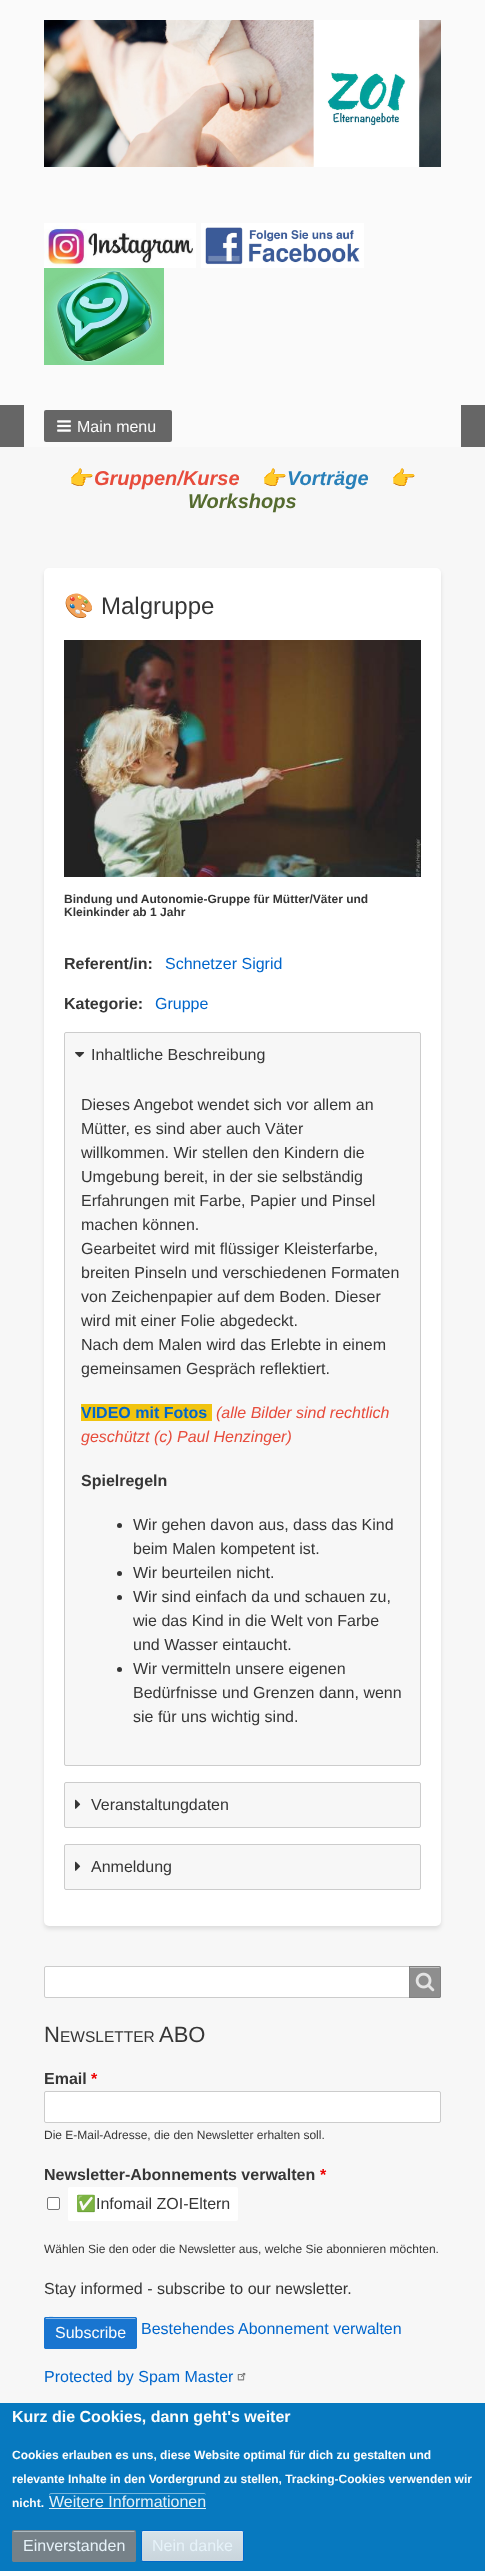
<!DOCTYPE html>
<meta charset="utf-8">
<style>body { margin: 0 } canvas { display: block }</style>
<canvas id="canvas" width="485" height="2571"></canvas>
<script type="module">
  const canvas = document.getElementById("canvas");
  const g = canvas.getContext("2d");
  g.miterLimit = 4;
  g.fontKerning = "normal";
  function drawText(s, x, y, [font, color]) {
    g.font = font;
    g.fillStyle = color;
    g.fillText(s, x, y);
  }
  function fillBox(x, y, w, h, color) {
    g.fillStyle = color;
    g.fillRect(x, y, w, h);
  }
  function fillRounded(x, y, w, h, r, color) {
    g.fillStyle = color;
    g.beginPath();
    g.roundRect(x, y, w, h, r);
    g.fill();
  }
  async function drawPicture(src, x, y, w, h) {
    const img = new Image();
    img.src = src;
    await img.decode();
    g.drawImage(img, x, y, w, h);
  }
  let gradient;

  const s1 = ["16px Liberation Sans", "#FCFCFC"];
  const s2 = ["20px Noto Color Emoji", "#363636"];
  const s3 = ["italic bold 20px Liberation Sans", "#E74C3C"];
  const s4 = ["italic bold 20px Liberation Sans", "#2980B9"];
  const s5 = ["italic bold 20px Liberation Sans", "#556B2F"];
  const s6 = ["24px Noto Color Emoji", "#363636"];
  const s7 = ["24px Liberation Sans", "#363636"];
  const s8 = ["bold 12px Liberation Sans", "#363636"];
  const s9 = ["bold 16px Liberation Sans", "#363636"];
  const s10 = ["16px Liberation Sans", "#0066CC"];
  const s11 = ["16px Liberation Sans", "#363636"];
  const s12 = ["bold 16px Liberation Sans", "#0066CC"];
  const s13 = ["italic 16px Liberation Sans", "#E74C3C"];
  const s14 = ["22px Liberation Sans", "#363636"];
  const s15 = ["15.5px Liberation Sans", "#363636"];
  const s16 = ["bold 16px Liberation Sans", "#EE0000"];
  const s17 = ["12px Liberation Sans", "#363636"];
  const s18 = ["16px Noto Color Emoji", "#363636"];
  const s19 = ["bold 16px Liberation Sans", "#FCFCFC"];
  const s20 = ["bold 12px Liberation Sans", "#FCFCFC"];
  const s21 = ["16px Liberation Sans", "#E6F2F9"];

  fillBox(0, 0, 485, 2571, "#F7F7F7");
  fillBox(0, 0, 485, 405, "#FAFAFA");
  await drawPicture("pic1.png", 44, 20, 397, 147);
  await drawPicture("pic2.png", 44, 223, 152, 45);
  await drawPicture("pic3.png", 201, 223, 163, 45);
  await drawPicture("pic4.png", 44, 268, 120, 97);
  fillBox(0, 405, 485, 42, "#666666");
  fillBox(24, 405, 437, 42, "#FAFAFA");
  fillRounded(44, 410, 128, 32, 2, "#666666");
  await drawPicture("pic5.png", 57, 420, 14, 12);
  drawText("Main menu", 77, 432, s1);
  drawText("👉", 69, 485, s2);
  drawText("Gruppen/Kurse", 94, 485, s3);
  drawText("👉", 262, 485, s2);
  drawText("Vorträge", 287, 485, s4);
  drawText("👉", 391, 485, s2);
  drawText("Workshops", 188, 508, s5);
  g.fillStyle = "rgba(0, 0, 0, 0.1)";
  g.filter = "blur(2px)";
  g.beginPath();
  g.roundRect(44, 571, 397, 1358, 5);
  g.fill();
  g.filter = "none";
  fillRounded(44, 568, 397, 1358, 5, "#FFFFFF");
  drawText("🎨", 64, 614, s6);
  drawText("Malgruppe", 101, 614, s7);
  await drawPicture("pic6.png", 64, 640, 357, 237);
  drawText("Bindung und Autonomie-Gruppe für Mütter/Väter und", 64, 903, s8);
  drawText("Kleinkinder ab 1 Jahr", 64, 916, s8);
  drawText("Referent/in:", 64, 969, s9);
  drawText("Schnetzer Sigrid", 165, 969, s10);
  drawText("Kategorie:", 64, 1009, s9);
  drawText("Gruppe", 155, 1009, s10);
  g.fillStyle = "#F7F7F7";
  g.beginPath();
  g.roundRect(64.5, 1032.5, 356, 733, 1.5);
  g.fill();
  g.strokeStyle = "#CCCCCC";
  g.stroke();
  await drawPicture("pic7.png", 75, 1052, 10, 6);
  drawText("Inhaltliche Beschreibung", 91, 1060, s11);
  drawText("Dieses Angebot wendet sich vor allem an", 81, 1110, s11);
  drawText("Mütter, es sind aber auch Väter", 81, 1134, s11);
  drawText("willkommen. Wir stellen den Kindern die", 81, 1158, s11);
  drawText("Umgebung bereit, in der sie selbständig", 81, 1182, s11);
  drawText("Erfahrungen mit Farbe, Papier und Pinsel", 81, 1206, s11);
  drawText("machen können.", 81, 1230, s11);
  drawText("Gearbeitet wird mit flüssiger Kleisterfarbe,", 81, 1254, s11);
  drawText("breiten Pinseln und verschiedenen Formaten", 81, 1278, s11);
  drawText("von Zeichenpapier auf dem Boden. Dieser", 81, 1302, s11);
  drawText("wird mit einer Folie abgedeckt.", 81, 1326, s11);
  drawText("Nach dem Malen wird das Erlebte in einem", 81, 1350, s11);
  drawText("gemeinsamen Gespräch reflektiert.", 81, 1374, s11);
  fillBox(81, 1404, 131, 17, "#F1C40F");
  drawText("VIDEO mit Fotos", 81, 1418, s12);
  drawText("(alle Bilder sind rechtlich", 216, 1418, s13);
  drawText("geschützt (c) Paul Henzinger)", 81, 1442, s13);
  drawText("Spielregeln", 81, 1486, s9);
  g.beginPath();
  g.arc(119.5, 1525.5, 2.5, 0, Math.PI * 2);
  g.fill();
  drawText("Wir gehen davon aus, dass das Kind", 133, 1530, s11);
  drawText("beim Malen kompetent ist.", 133, 1554, s11);
  g.beginPath();
  g.arc(119.5, 1573.5, 2.5, 0, Math.PI * 2);
  g.fill();
  drawText("Wir beurteilen nicht.", 133, 1578, s11);
  g.beginPath();
  g.arc(119.5, 1597.5, 2.5, 0, Math.PI * 2);
  g.fill();
  drawText("Wir sind einfach da und schauen zu,", 133, 1602, s11);
  drawText("wie das Kind in die Welt von Farbe", 133, 1626, s11);
  drawText("und Wasser eintaucht.", 133, 1650, s11);
  g.beginPath();
  g.arc(119.5, 1669.5, 2.5, 0, Math.PI * 2);
  g.fill();
  drawText("Wir vermitteln unsere eigenen", 133, 1674, s11);
  drawText("Bedürfnisse und Grenzen dann, wenn", 133, 1698, s11);
  drawText("sie für uns wichtig sind.", 133, 1722, s11);
  g.fillStyle = "#F7F7F7";
  g.beginPath();
  g.roundRect(64.5, 1782.5, 356, 45, 1.5);
  g.fill();
  g.stroke();
  await drawPicture("pic8.png", 75, 1799, 6, 10);
  drawText("Veranstaltungdaten", 91, 1810, s11);
  g.fillStyle = "#F7F7F7";
  g.beginPath();
  g.roundRect(64.5, 1844.5, 356, 45, 1.5);
  g.fill();
  g.stroke();
  await drawPicture("pic8.png", 75, 1861, 6, 10);
  drawText("Anmeldung", 91, 1872, s11);
  g.fillStyle = "#FFFFFF";
  g.beginPath();
  g.roundRect(44.5, 1966.5, 396, 31, 1.5);
  g.fill();
  g.stroke();
  g.fillStyle = "rgba(130, 130, 130, 0.9)";
  g.beginPath();
  g.roundRect(409, 1966, 32, 32, [0, 2, 2, 0]);
  g.fill();
  await drawPicture("pic9.png", 415, 1972, 20, 20);
  g.fillStyle = "#C1C1C1";
  g.beginPath();
  g.moveTo(410, 1968);
  g.lineTo(440, 1968);
  g.lineTo(440, 1969);
  g.lineTo(440, 1968);
  g.bezierCurveTo(440, 1967.5, 439.5, 1967, 439, 1967);
  g.lineTo(410, 1967);
  g.closePath();
  g.fill();
  g.beginPath();
  g.roundRect(409.5, 1966.5, 31, 31, [0, 1.5, 1.5, 0]);
  g.strokeStyle = "rgba(130, 130, 130, 0.9)";
  g.stroke();
  drawText("N", 44, 2042, s14);
  drawText("EWSLETTER", 60, 2042, s15);
  drawText("ABO", 159, 2042, s14);
  drawText("Email", 44, 2084, s9);
  drawText("*", 91, 2084, s16);
  g.fillStyle = "#FFFFFF";
  g.beginPath();
  g.roundRect(44.5, 2091.5, 396, 31, 1.5);
  g.fill();
  g.strokeStyle = "#CCCCCC";
  g.stroke();
  drawText("Die E-Mail-Adresse, die den Newsletter erhalten soll.", 44, 2139, s17);
  drawText("Newsletter-Abonnements verwalten", 44, 2180, s9);
  drawText("*", 320, 2180, s16);
  g.fillStyle = "#FFFFFF";
  g.beginPath();
  g.roundRect(47.5, 2197.5, 12, 12, 1.5);
  g.fill();
  g.strokeStyle = "#767676";
  g.stroke();
  fillRounded(68, 2187, 170, 34, 2, "#FFFFFF");
  drawText("✅", 76, 2209, s18);
  drawText("Infomail ZOI-Eltern", 96, 2209, s11);
  drawText("Wählen Sie den oder die Newsletter aus, welche Sie abonnieren möchten.", 44, 2253, s17);
  drawText("Stay informed - subscribe to our newsletter.", 44, 2294, s11);
  fillRounded(44, 2317, 93, 32, 2, "#1975D0");
  g.fillStyle = "#8CBAE7";
  g.beginPath();
  g.moveTo(46, 2319);
  g.lineTo(135, 2319);
  g.bezierCurveTo(136, 2319, 136, 2319, 136, 2320);
  g.bezierCurveTo(136, 2319, 136, 2318, 135, 2318);
  g.lineTo(61, 2318);
  g.bezierCurveTo(59, 2318, 45, 2314, 45, 2320);
  g.bezierCurveTo(45, 2319, 45, 2319, 46, 2319);
  g.closePath();
  g.fill();
  g.beginPath();
  g.roundRect(44.5, 2317.5, 92, 31, 1.5);
  g.strokeStyle = "#1975D0";
  g.stroke();
  drawText("Subscribe", 55, 2338, s1);
  drawText("Bestehendes Abonnement verwalten", 141, 2334, s10);
  drawText("Protected by Spam Master", 44, 2382, s10);
  await drawPicture("pic10.png", 237, 2372, 9, 9);
  fillBox(0, 2403, 485, 168, "#0779BF");
  drawText("Kurz die Cookies, dann geht's weiter", 12, 2422, s19);
  drawText("Cookies erlauben es uns, diese Website optimal für dich zu gestalten und", 12, 2459, s20);
  drawText("relevante Inhalte in den Vordergrund zu stellen, Tracking-Cookies verwenden wir", 12, 2483, s20);
  drawText("nicht.", 12, 2507, s20);
  g.fillStyle = "#77B6DC";
  g.beginPath();
  g.moveTo(51, 2494);
  g.lineTo(205, 2494);
  g.lineTo(206, 2495);
  g.bezierCurveTo(206, 2494, 205, 2493, 204, 2493);
  g.lineTo(51, 2493);
  g.bezierCurveTo(50, 2493, 49, 2494, 49, 2495);
  g.lineTo(49, 2497);
  g.bezierCurveTo(49, 2495, 50, 2494, 51, 2494);
  g.closePath();
  g.moveTo(49, 2510);
  g.lineTo(49, 2509);
  g.closePath();
  g.fill("evenodd");
  drawText("Weitere Informationen", 49, 2507, s21);
  fillBox(49, 2508, 157, 1, "#E6F2F9");
  fillRounded(12, 2530, 124, 32, 2, "#768188");
  g.fillStyle = "#AEBAC1";
  g.beginPath();
  g.moveTo(14, 2532);
  g.lineTo(135, 2532);
  g.lineTo(135, 2533);
  g.bezierCurveTo(135, 2532, 135, 2531, 134, 2531);
  g.lineTo(14, 2531);
  g.bezierCurveTo(13, 2531, 13, 2532, 13, 2533);
  g.bezierCurveTo(13, 2532, 13, 2532, 14, 2532);
  g.closePath();
  g.fill();
  g.beginPath();
  g.roundRect(12.5, 2530.5, 123, 31, 1.5);
  g.strokeStyle = "#768188";
  g.stroke();
  drawText("Einverstanden", 23, 2551, s21);
  g.save();
  g.beginPath();
  g.roundRect(141, 2530, 103, 32, 2);
  g.clip();
  gradient = g.createLinearGradient(193, 2531, 193, 2561);
  gradient.addColorStop(0.05, "#D6E1E8");
  gradient.addColorStop(1, "#C9D5DC");
  g.fillStyle = gradient;
  g.fillRect(141, 2531, 103, 30);
  g.restore();
  g.fillStyle = "#DEEAF1";
  g.beginPath();
  g.moveTo(143, 2532);
  g.lineTo(242, 2532);
  g.bezierCurveTo(243, 2532, 243, 2532, 243, 2533);
  g.bezierCurveTo(243, 2532, 243, 2531, 242, 2531);
  g.lineTo(143, 2531);
  g.bezierCurveTo(142, 2531, 142, 2532, 142, 2533);
  g.bezierCurveTo(142, 2532, 142, 2532, 143, 2532);
  g.closePath();
  g.fill();
  g.beginPath();
  g.roundRect(141.5, 2530.5, 102, 31, 1.5);
  g.strokeStyle = "#0168CB";
  g.stroke();
  drawText("Nein danke", 152, 2551, s21);
</script>
